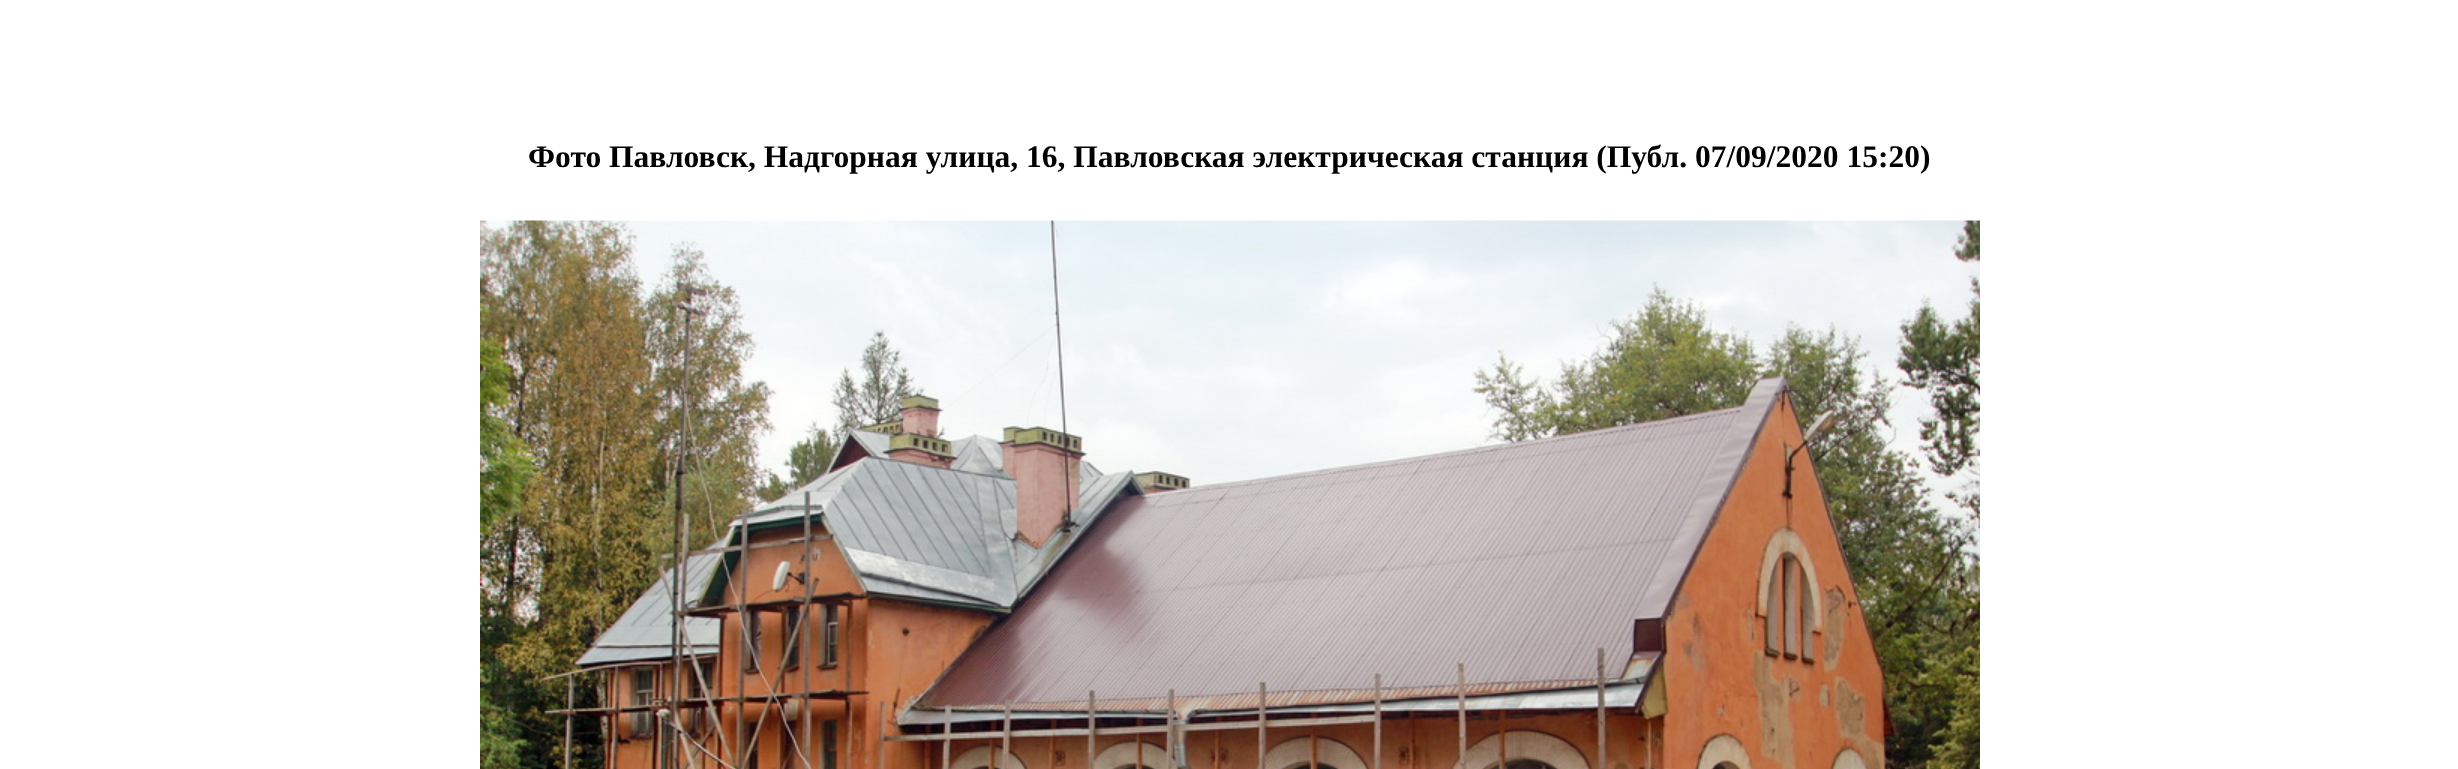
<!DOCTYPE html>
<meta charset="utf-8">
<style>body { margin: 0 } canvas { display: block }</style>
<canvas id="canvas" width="2458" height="769"></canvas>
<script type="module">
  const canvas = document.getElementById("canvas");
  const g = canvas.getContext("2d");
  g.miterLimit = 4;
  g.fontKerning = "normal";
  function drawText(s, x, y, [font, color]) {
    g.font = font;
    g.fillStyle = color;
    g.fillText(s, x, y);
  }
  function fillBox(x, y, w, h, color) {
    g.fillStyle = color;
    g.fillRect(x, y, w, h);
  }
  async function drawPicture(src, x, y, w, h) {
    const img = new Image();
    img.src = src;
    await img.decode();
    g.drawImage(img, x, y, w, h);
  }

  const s1 = ["bold 31.5px Liberation Serif", "#000000"];

  fillBox(0, 0, 2458, 769, "#FFFFFF");
  drawText("Фото Павловск, Надгорная улица, 16, Павловская электрическая станция (Публ. 07/09/2020 15:20)", 528, 167, s1);
  await drawPicture("pic1.png", 480, 220, 1500, 549);
</script>
